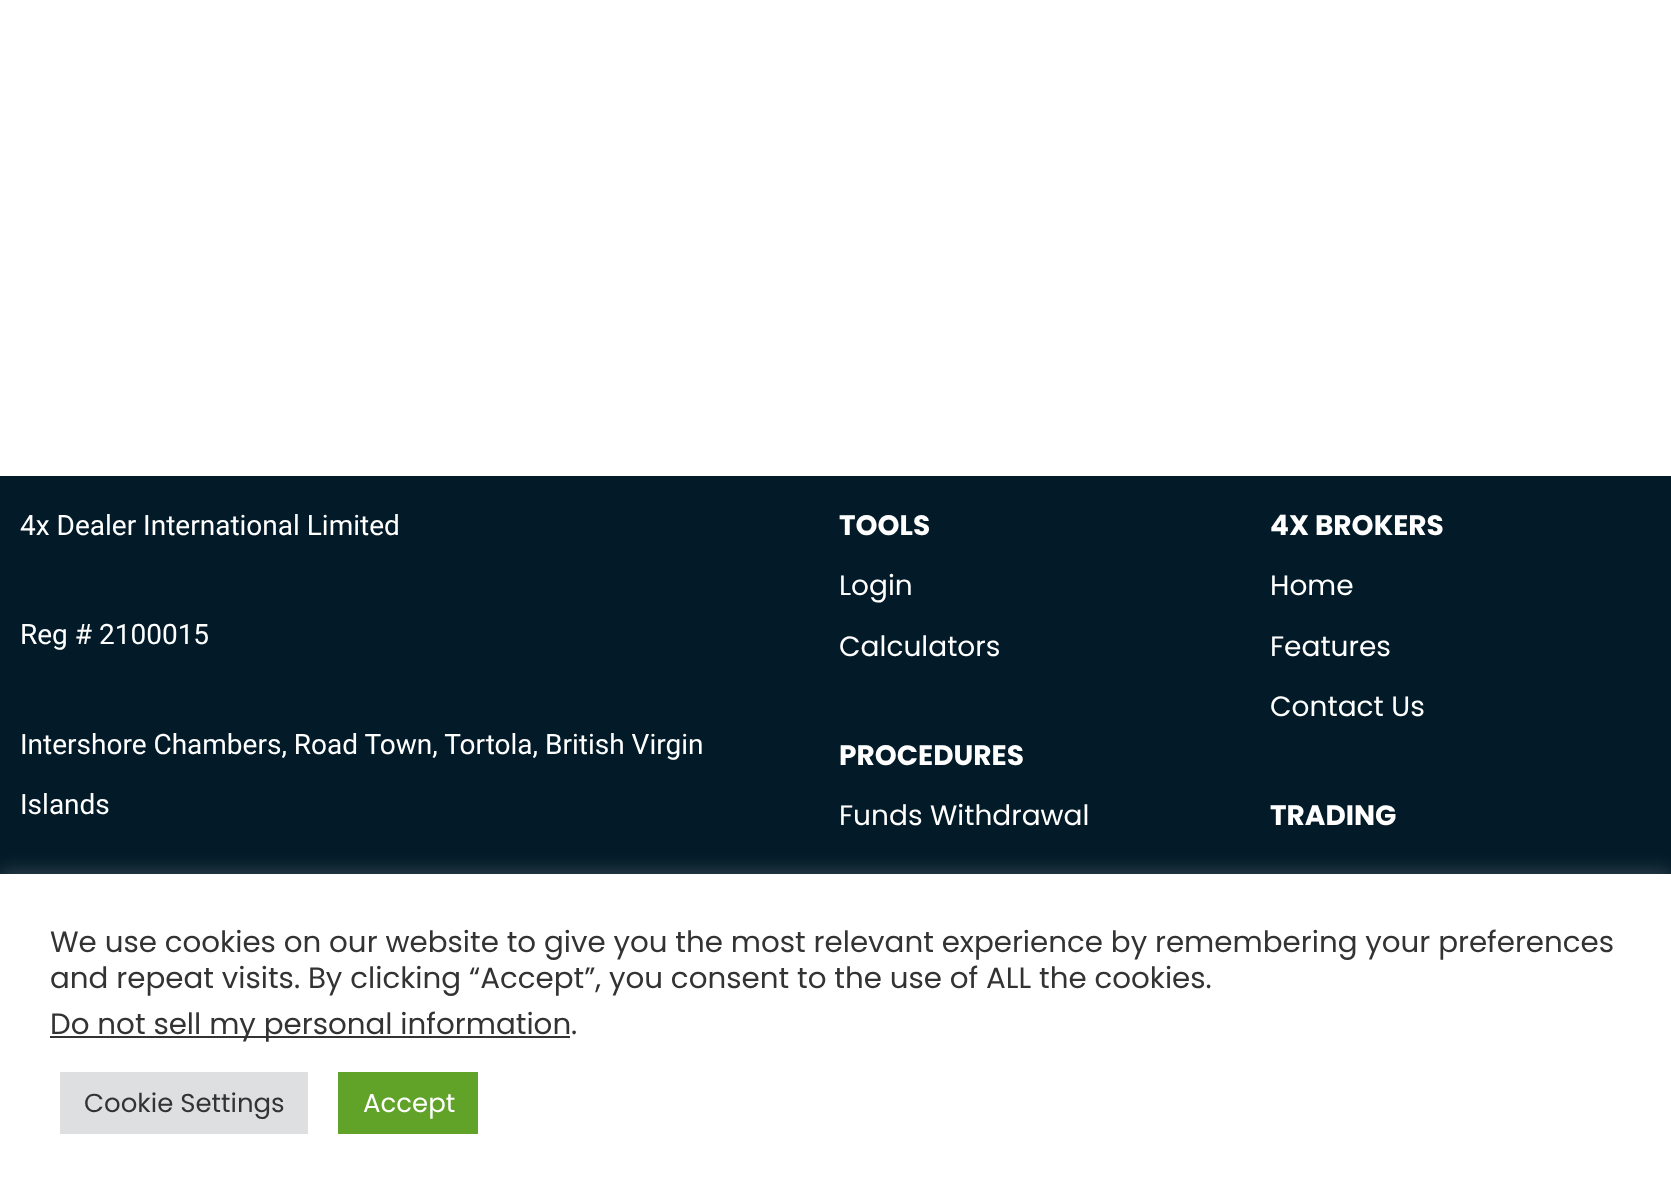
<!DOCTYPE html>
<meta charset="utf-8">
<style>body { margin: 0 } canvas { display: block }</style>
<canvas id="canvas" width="1671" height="1194"></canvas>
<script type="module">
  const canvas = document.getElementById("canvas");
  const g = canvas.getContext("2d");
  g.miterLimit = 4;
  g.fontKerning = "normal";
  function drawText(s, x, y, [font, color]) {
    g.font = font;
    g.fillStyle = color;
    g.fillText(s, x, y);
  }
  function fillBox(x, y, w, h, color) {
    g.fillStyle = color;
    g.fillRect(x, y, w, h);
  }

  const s1 = ["28px Roboto", "#FFFFFF"];
  const s2 = ["bold 28px Poppins", "#FFFFFF"];
  const s3 = ["28px Poppins", "#FFFFFF"];
  const s4 = ["29.33px Poppins", "#333333"];
  const s5 = ["26px Poppins", "#333333"];
  const s6 = ["26px Poppins", "#FFFFFF"];

  fillBox(0, 0, 1671, 1194, "#FFFFFF");
  fillBox(0, 476, 1671, 398, "#031B28");
  drawText("4x Dealer International Limited", 20, 535, s1);
  drawText("Reg # 2100015", 20, 644, s1);
  drawText("Intershore Chambers, Road Town, Tortola, British Virgin", 20, 754, s1);
  drawText("Islands", 20, 814, s1);
  drawText("TOOLS", 839, 535, s2);
  drawText("Login", 839, 595, s3);
  drawText("Calculators", 839, 656, s3);
  drawText("PROCEDURES", 839, 765, s2);
  drawText("Funds Withdrawal", 839, 825, s3);
  drawText("4X BROKERS", 1270, 535, s2);
  drawText("Home", 1270, 595, s3);
  drawText("Features", 1270, 656, s3);
  drawText("Contact Us", 1270, 716, s3);
  drawText("TRADING", 1270, 825, s2);
  g.fillStyle = "rgba(172, 171, 171, 0.3)";
  g.filter = "blur(10px)";
  g.beginPath();
  g.rect(0, 872, 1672, 320);
  g.fill();
  g.filter = "none";
  fillBox(0, 874, 1671, 320, "#FFFFFF");
  drawText("We use cookies on our website to give you the most relevant experience by remembering your preferences", 50, 952, s4);
  drawText("and repeat visits. By clicking “Accept”, you consent to the use of ALL the cookies.", 50, 988, s4);
  fillBox(50, 1036, 520, 2, "#333333");
  drawText("Do not sell my personal information", 50, 1034, s4);
  drawText(".", 571, 1034, s4);
  fillBox(60, 1072, 248, 62, "#DEDFE0");
  drawText("Cookie Settings", 84, 1112, s5);
  fillBox(338, 1072, 140, 62, "#61A229");
  drawText("Accept", 363, 1112, s6);
</script>
